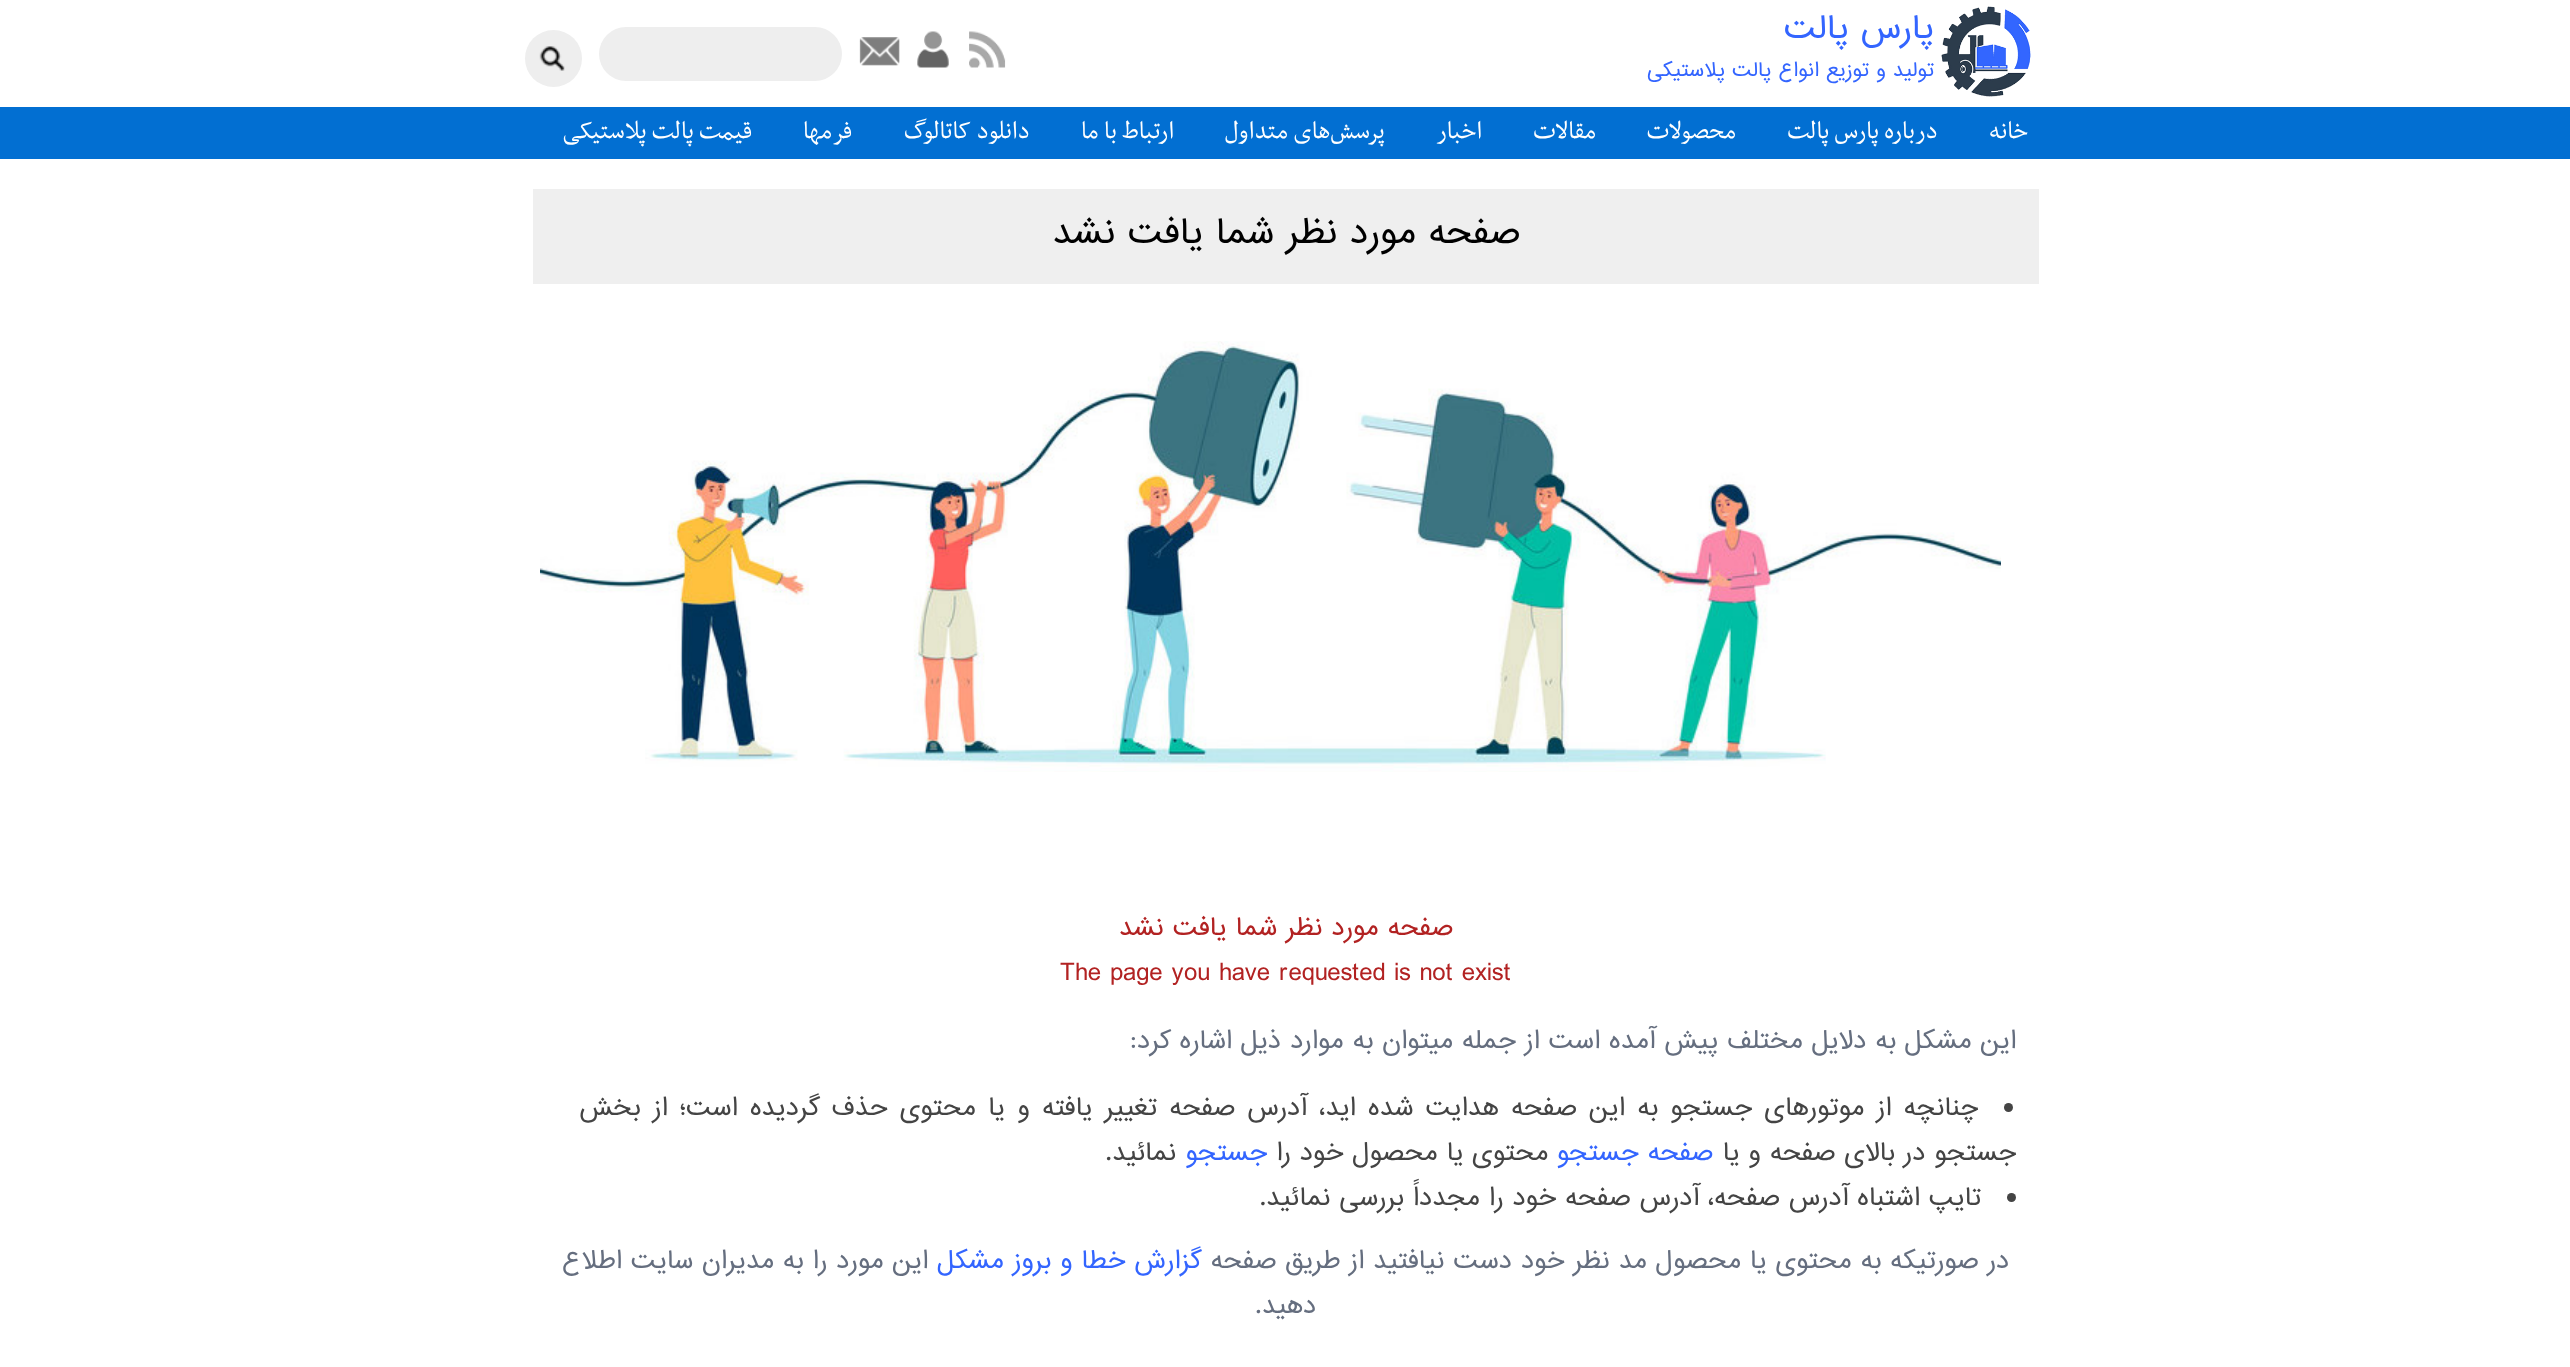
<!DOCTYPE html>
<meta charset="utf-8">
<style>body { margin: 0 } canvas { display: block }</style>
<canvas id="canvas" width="2570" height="1367"></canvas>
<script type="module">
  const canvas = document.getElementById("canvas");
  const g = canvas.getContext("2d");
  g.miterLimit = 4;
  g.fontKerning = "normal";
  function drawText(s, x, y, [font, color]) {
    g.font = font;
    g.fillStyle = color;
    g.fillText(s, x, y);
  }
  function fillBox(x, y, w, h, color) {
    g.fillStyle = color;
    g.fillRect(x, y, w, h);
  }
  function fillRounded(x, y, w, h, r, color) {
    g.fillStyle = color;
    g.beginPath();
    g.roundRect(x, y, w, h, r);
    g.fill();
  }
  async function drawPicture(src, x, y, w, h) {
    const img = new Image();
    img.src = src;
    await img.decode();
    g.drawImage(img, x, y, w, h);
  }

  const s1 = ["31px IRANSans", "#3365FF"];
  const s2 = ["18.75px IRANSans", "#3365FF"];
  const s3 = ["28.75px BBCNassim", "#FFFFFF"];
  const s4 = ["33.6px IRANSans", "#000000"];
  const s5 = ["24px IRANSans", "#B22222"];
  const s6 = ["24px IRANSans", "#656E7F"];
  const s7 = ["24px IRANSans", "#444444"];
  const s8 = ["24px IRANSans", "#3365FF"];

  fillBox(0, 0, 2570, 1367, "#FFFFFF");
  await drawPicture("pic1.png", 1941, 6, 90, 91);
  g.direction = "rtl";
  drawText("پارس پالت", 1934, 38, s1);
  drawText("تولید و توزیع انواع پالت پلاستیکی", 1934, 76, s2);
  await drawPicture("pic2.png", 969, 31, 37, 37);
  await drawPicture("pic3.png", 917, 31, 32, 37);
  await drawPicture("pic4.png", 859, 37, 41, 29);
  fillRounded(599, 27, 243, 54, 27, "#EEEEEE");
  g.beginPath();
  g.arc(553.5, 58.5, 28.5, 0, Math.PI * 2);
  g.fill();
  await drawPicture("pic5.png", 539, 46, 26, 25);
  fillBox(0, 107, 2570, 52, "#026FD2");
  drawText("خانه", 2028, 138, s3);
  drawText("درباره پارس پالت", 1938, 138, s3);
  drawText("محصولات", 1736, 138, s3);
  drawText("مقالات", 1596, 138, s3);
  drawText("اخبار", 1482, 138, s3);
  drawText("پرسش‌های متداول", 1385, 138, s3);
  drawText("ارتباط با ما", 1174, 138, s3);
  drawText("دانلود کاتالوگ", 1030, 138, s3);
  drawText("فرمها", 852, 138, s3);
  drawText("قیمت پالت پلاستیکی", 752, 138, s3);
  fillBox(533, 189, 1506, 95, "#EFEFEF");
  drawText("صفحه مورد نظر شما یافت نشد", 1520, 243, s4);
  await drawPicture("pic6.png", 540, 341, 1461, 431);
  drawText("صفحه مورد نظر شما يافت نشد", 1453, 935, s5);
  g.direction = "ltr";
  drawText("The page you have requested is not exist", 1060, 980, s5);
  g.direction = "rtl";
  drawText("این مشکل به دلایل مختلف پیش آمده است از جمله میتوان به موارد ذیل اشاره کرد:", 2016, 1048, s6);
  g.fillStyle = "#444444";
  g.beginPath();
  g.arc(2008.5, 1107.5, 4.5, 0, Math.PI * 2);
  g.fill();
  g.wordSpacing = "3.4px";
  drawText("چنانچه از موتورهای جستجو به این صفحه هدایت شده اید، آدرس صفحه تغییر یافته و یا محتوی حذف گردیده است؛ از بخش", 1978, 1115, s7);
  g.wordSpacing = "0px";
  drawText("جستجو در بالای صفحه و یا", 2016, 1160, s7);
  drawText("صفحه جستجو", 1713, 1160, s8);
  drawText("محتوی یا محصول خود را", 1548, 1160, s7);
  drawText("جستجو", 1267, 1160, s8);
  drawText("نمائید.", 1176, 1160, s7);
  g.beginPath();
  g.arc(2011.5, 1197.5, 4.5, 0, Math.PI * 2);
  g.fill();
  drawText("تایپ اشتباه آدرس صفحه، آدرس صفحه خود را مجدداً بررسی نمائید.", 1981, 1205, s7);
  drawText("در صورتیکه به محتوی یا محصول مد نظر خود دست نیافتید از طریق صفحه", 2009, 1268, s6);
  drawText("گزارش خطا و بروز مشکل", 1201, 1268, s8);
  drawText("این مورد را به مدیران سایت اطلاع", 928, 1268, s6);
  drawText("دهید.", 1316, 1313, s6);
</script>
